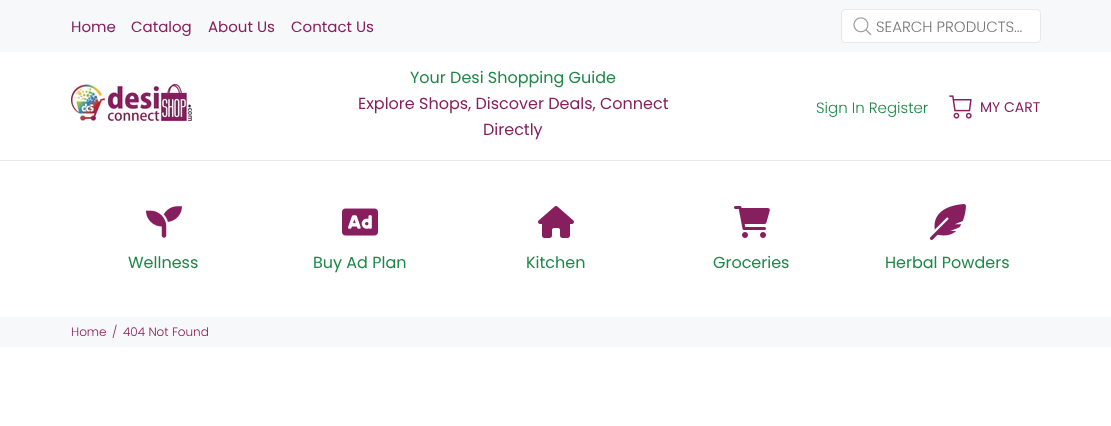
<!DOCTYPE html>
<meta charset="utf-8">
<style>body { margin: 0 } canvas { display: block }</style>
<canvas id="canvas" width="1111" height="426"></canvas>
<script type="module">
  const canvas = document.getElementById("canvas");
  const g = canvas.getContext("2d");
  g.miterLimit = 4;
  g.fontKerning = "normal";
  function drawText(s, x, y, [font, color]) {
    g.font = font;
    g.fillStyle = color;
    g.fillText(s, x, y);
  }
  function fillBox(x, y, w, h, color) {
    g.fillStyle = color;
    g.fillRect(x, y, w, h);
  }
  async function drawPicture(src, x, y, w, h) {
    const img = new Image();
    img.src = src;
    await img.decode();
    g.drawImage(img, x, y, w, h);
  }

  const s1 = ["15px Poppins", "#871E5E"];
  const s2 = ["300 15px Poppins", "#777777"];
  const s3 = ["16px Poppins", "#1E8747"];
  const s4 = ["16px Poppins", "#871E5E"];
  const s5 = ["300 15px Poppins", "#1E8747"];
  const s6 = ["14px Poppins", "#871E5E"];
  const s7 = ["300 12px Poppins", "#871E5E"];

  fillBox(0, 0, 1111, 426, "#FFFFFF");
  fillBox(0, 0, 1111, 52, "#F7F8FA");
  drawText("Home", 71, 32, s1);
  drawText("Catalog", 131, 32, s1);
  drawText("About Us", 208, 32, s1);
  drawText("Contact Us", 291, 32, s1);
  g.fillStyle = "#FFFFFF";
  g.beginPath();
  g.roundRect(841.5, 9.5, 199, 33, 3.5);
  g.fill();
  g.strokeStyle = "#E9E7E7";
  g.stroke();
  await drawPicture("pic1.png", 853, 17, 19, 19);
  drawText("SEARCH PRODUCTS...", 876, 32, s2);
  fillBox(0, 160, 1111, 1, "#E9E7E7");
  await drawPicture("pic2.png", 71, 84, 121, 37);
  drawText("Your Desi Shopping Guide", 410, 83, s3);
  drawText("Explore Shops, Discover Deals, Connect", 358, 109, s4);
  drawText("Directly", 483, 135, s4);
  drawText("Sign In Register", 816, 113, s5);
  await drawPicture("pic3.png", 949, 95, 23, 24);
  drawText("MY CART", 980, 112, s6);
  await drawPicture("pic4.png", 146, 206, 36, 32);
  drawText("Wellness", 128, 268, s3);
  await drawPicture("pic5.png", 342, 208, 36, 28);
  drawText("Buy Ad Plan", 313, 268, s3);
  await drawPicture("pic6.png", 538, 206, 36, 32);
  drawText("Kitchen", 526, 268, s3);
  await drawPicture("pic7.png", 734, 206, 36, 32);
  drawText("Groceries", 713, 268, s3);
  await drawPicture("pic8.png", 930, 204, 36, 36);
  drawText("Herbal Powders", 885, 268, s3);
  fillBox(0, 317, 1111, 30, "#F7F8FA");
  drawText("Home", 71, 336, s7);
  drawText("/", 112, 336, s7);
  drawText("404 Not Found", 123, 336, s7);
</script>
